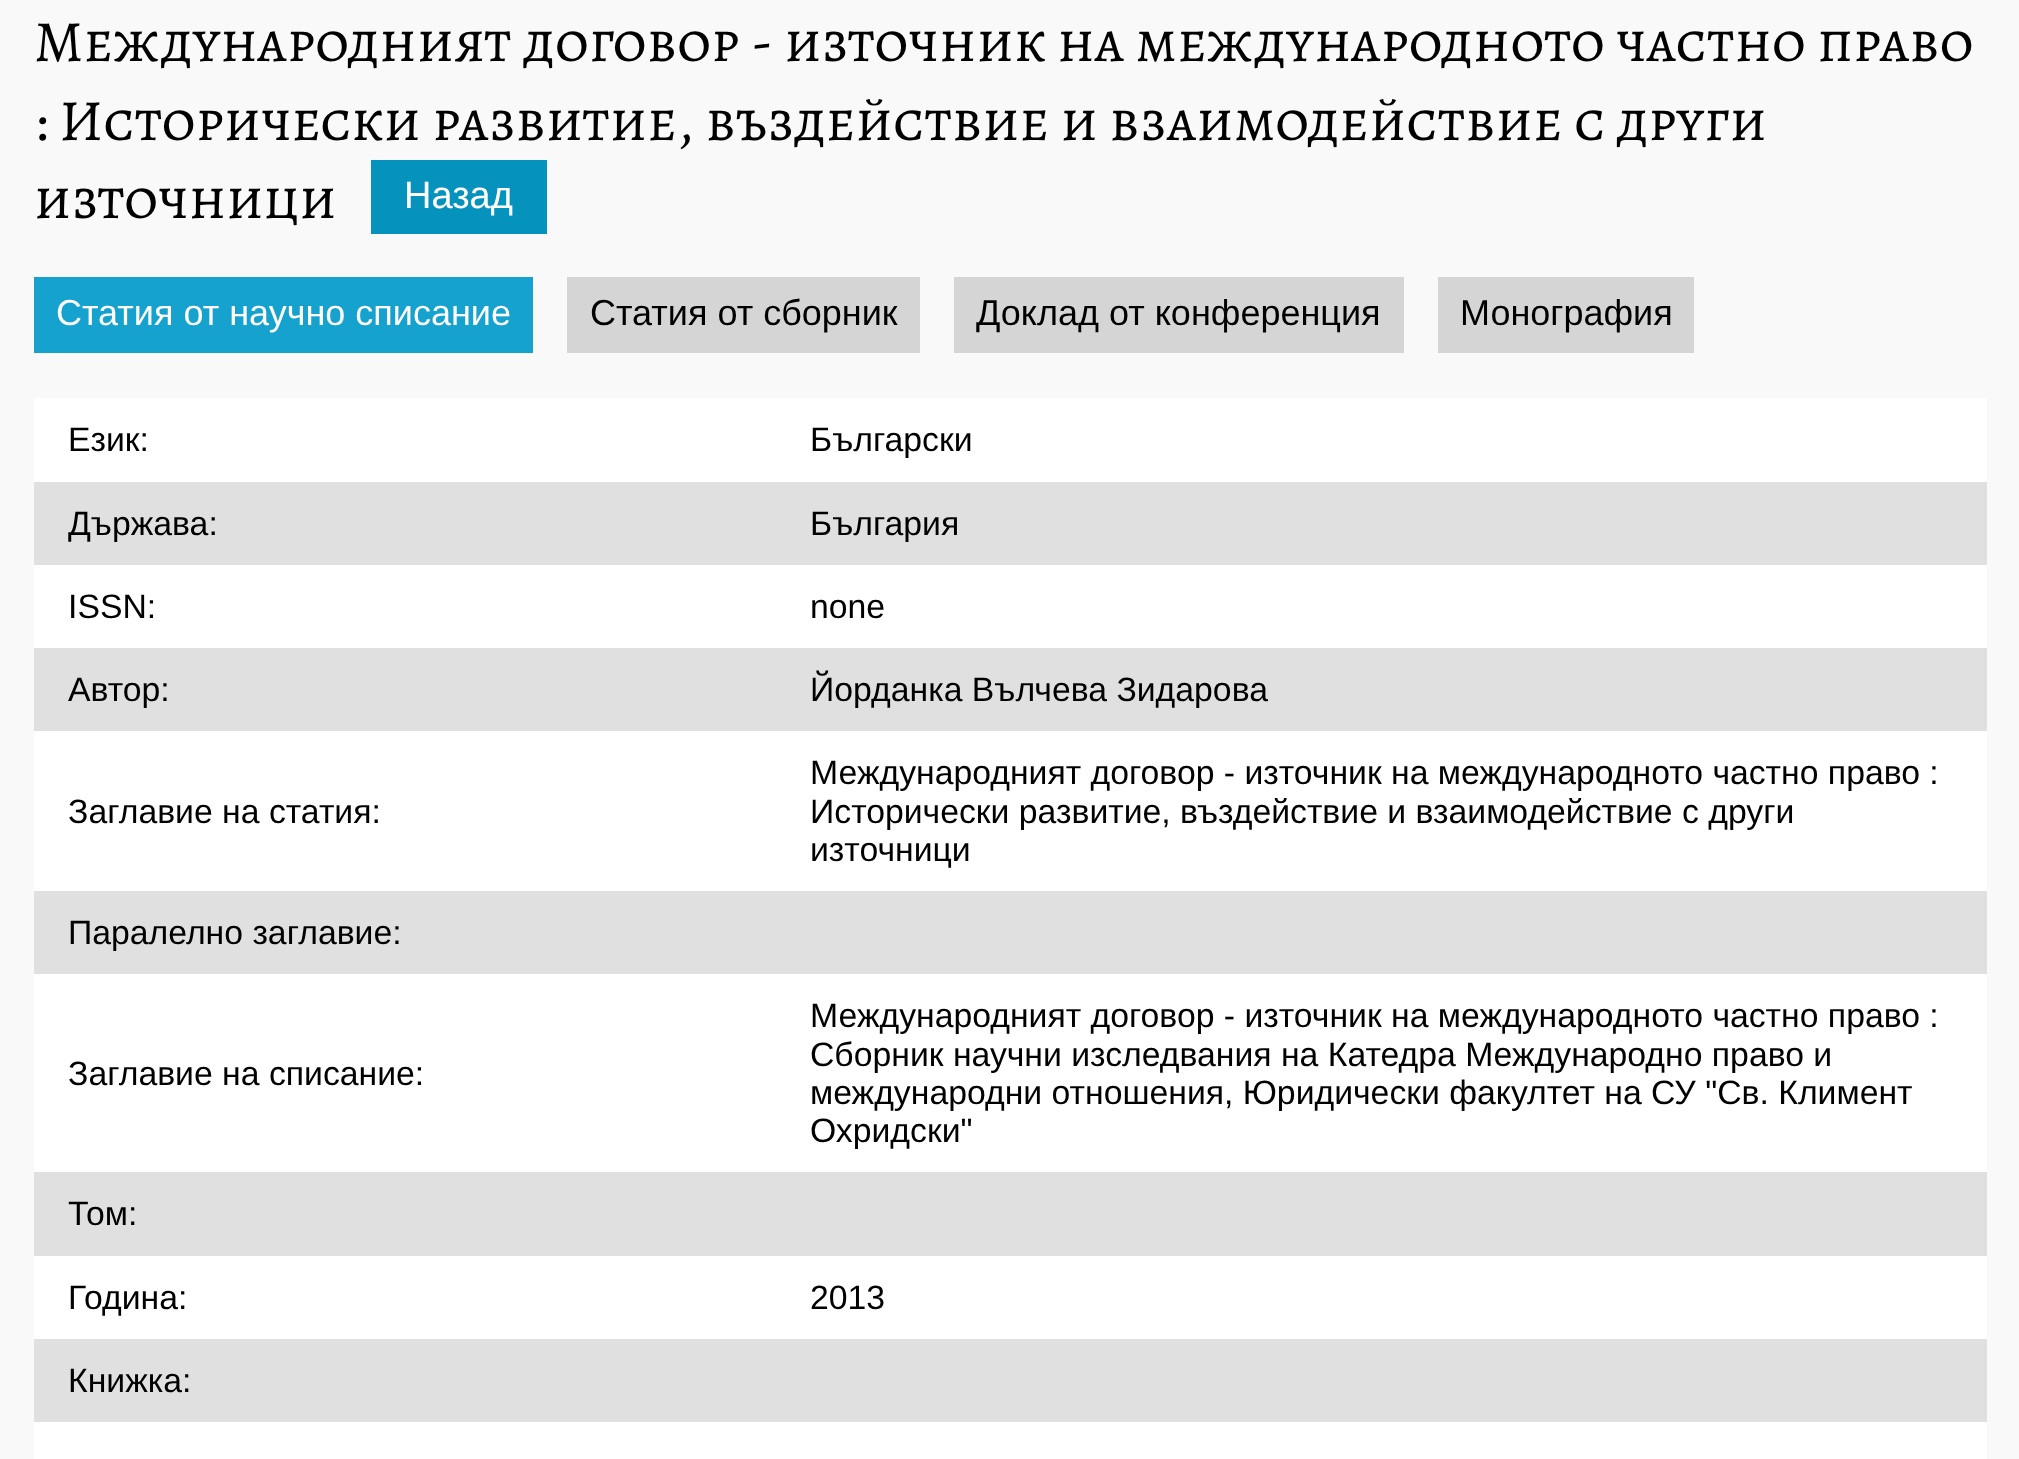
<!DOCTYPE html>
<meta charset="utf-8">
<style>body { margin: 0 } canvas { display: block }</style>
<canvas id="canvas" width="2019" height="1459"></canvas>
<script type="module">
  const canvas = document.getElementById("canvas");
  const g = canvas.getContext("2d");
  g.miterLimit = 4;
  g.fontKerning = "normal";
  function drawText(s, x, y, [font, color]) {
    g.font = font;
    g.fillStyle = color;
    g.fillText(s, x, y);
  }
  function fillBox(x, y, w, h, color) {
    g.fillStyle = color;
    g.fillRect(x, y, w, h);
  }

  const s1 = ["58.5px Alegreya SC", "#000000"];
  const s2 = ["38px Liberation Sans", "#FFFFFF"];
  const s3 = ["36px Liberation Sans", "#FFFFFF"];
  const s4 = ["36px Liberation Sans", "#000000"];
  const s5 = ["33.75px Liberation Sans", "#000000"];

  fillBox(0, 0, 2019, 1459, "#F9F9F9");
  g.wordSpacing = "-0.25px";
  drawText("Международният договор - източник на международното частно право", 34, 61, s1);
  drawText(": Исторически развитие, въздействие и взаимодействие с други", 34, 140, s1);
  g.wordSpacing = "0px";
  drawText("източници", 34, 218, s1);
  fillBox(371, 160, 176, 74, "#0592BD");
  drawText("Назад", 404, 208, s2);
  fillBox(34, 277, 499, 76, "#16A2CE");
  drawText("Статия от научно списание", 56, 325, s3);
  fillBox(567, 277, 353, 76, "#D5D5D5");
  drawText("Статия от сборник", 590, 325, s4);
  fillBox(954, 277, 450, 76, "#D5D5D5");
  drawText("Доклад от конференция", 976, 325, s4);
  fillBox(1438, 277, 256, 76, "#D5D5D5");
  drawText("Монография", 1460, 325, s4);
  fillBox(34, 398, 1953, 1061, "#FFFFFF");
  drawText("Език:", 68, 451, s5);
  drawText("Български", 810, 451, s5);
  fillBox(34, 482, 1953, 83, "#E0E0E0");
  drawText("Държава:", 68, 535, s5);
  drawText("България", 810, 535, s5);
  drawText("ISSN:", 68, 618, s5);
  drawText("none", 810, 618, s5);
  fillBox(34, 648, 1953, 83, "#E0E0E0");
  drawText("Автор:", 68, 701, s5);
  drawText("Йорданка Вълчева Зидарова", 810, 701, s5);
  drawText("Заглавие на статия:", 68, 823, s5);
  drawText("Международният договор - източник на международното частно право :", 810, 784, s5);
  drawText("Исторически развитие, въздействие и взаимодействие с други", 810, 823, s5);
  drawText("източници", 810, 861, s5);
  fillBox(34, 891, 1953, 83, "#E0E0E0");
  drawText("Паралелно заглавие:", 68, 944, s5);
  drawText("Заглавие на списание:", 68, 1085, s5);
  drawText("Международният договор - източник на международното частно право :", 810, 1027, s5);
  drawText("Сборник научни изследвания на Катедра Международно право и", 810, 1066, s5);
  drawText("международни отношения, Юридически факултет на СУ \"Св. Климент", 810, 1104, s5);
  drawText("Охридски\"", 810, 1142, s5);
  fillBox(34, 1172, 1953, 84, "#E0E0E0");
  drawText("Том:", 68, 1225, s5);
  drawText("Година:", 68, 1309, s5);
  drawText("2013", 810, 1309, s5);
  fillBox(34, 1339, 1953, 83, "#E0E0E0");
  drawText("Книжка:", 68, 1392, s5);
</script>
